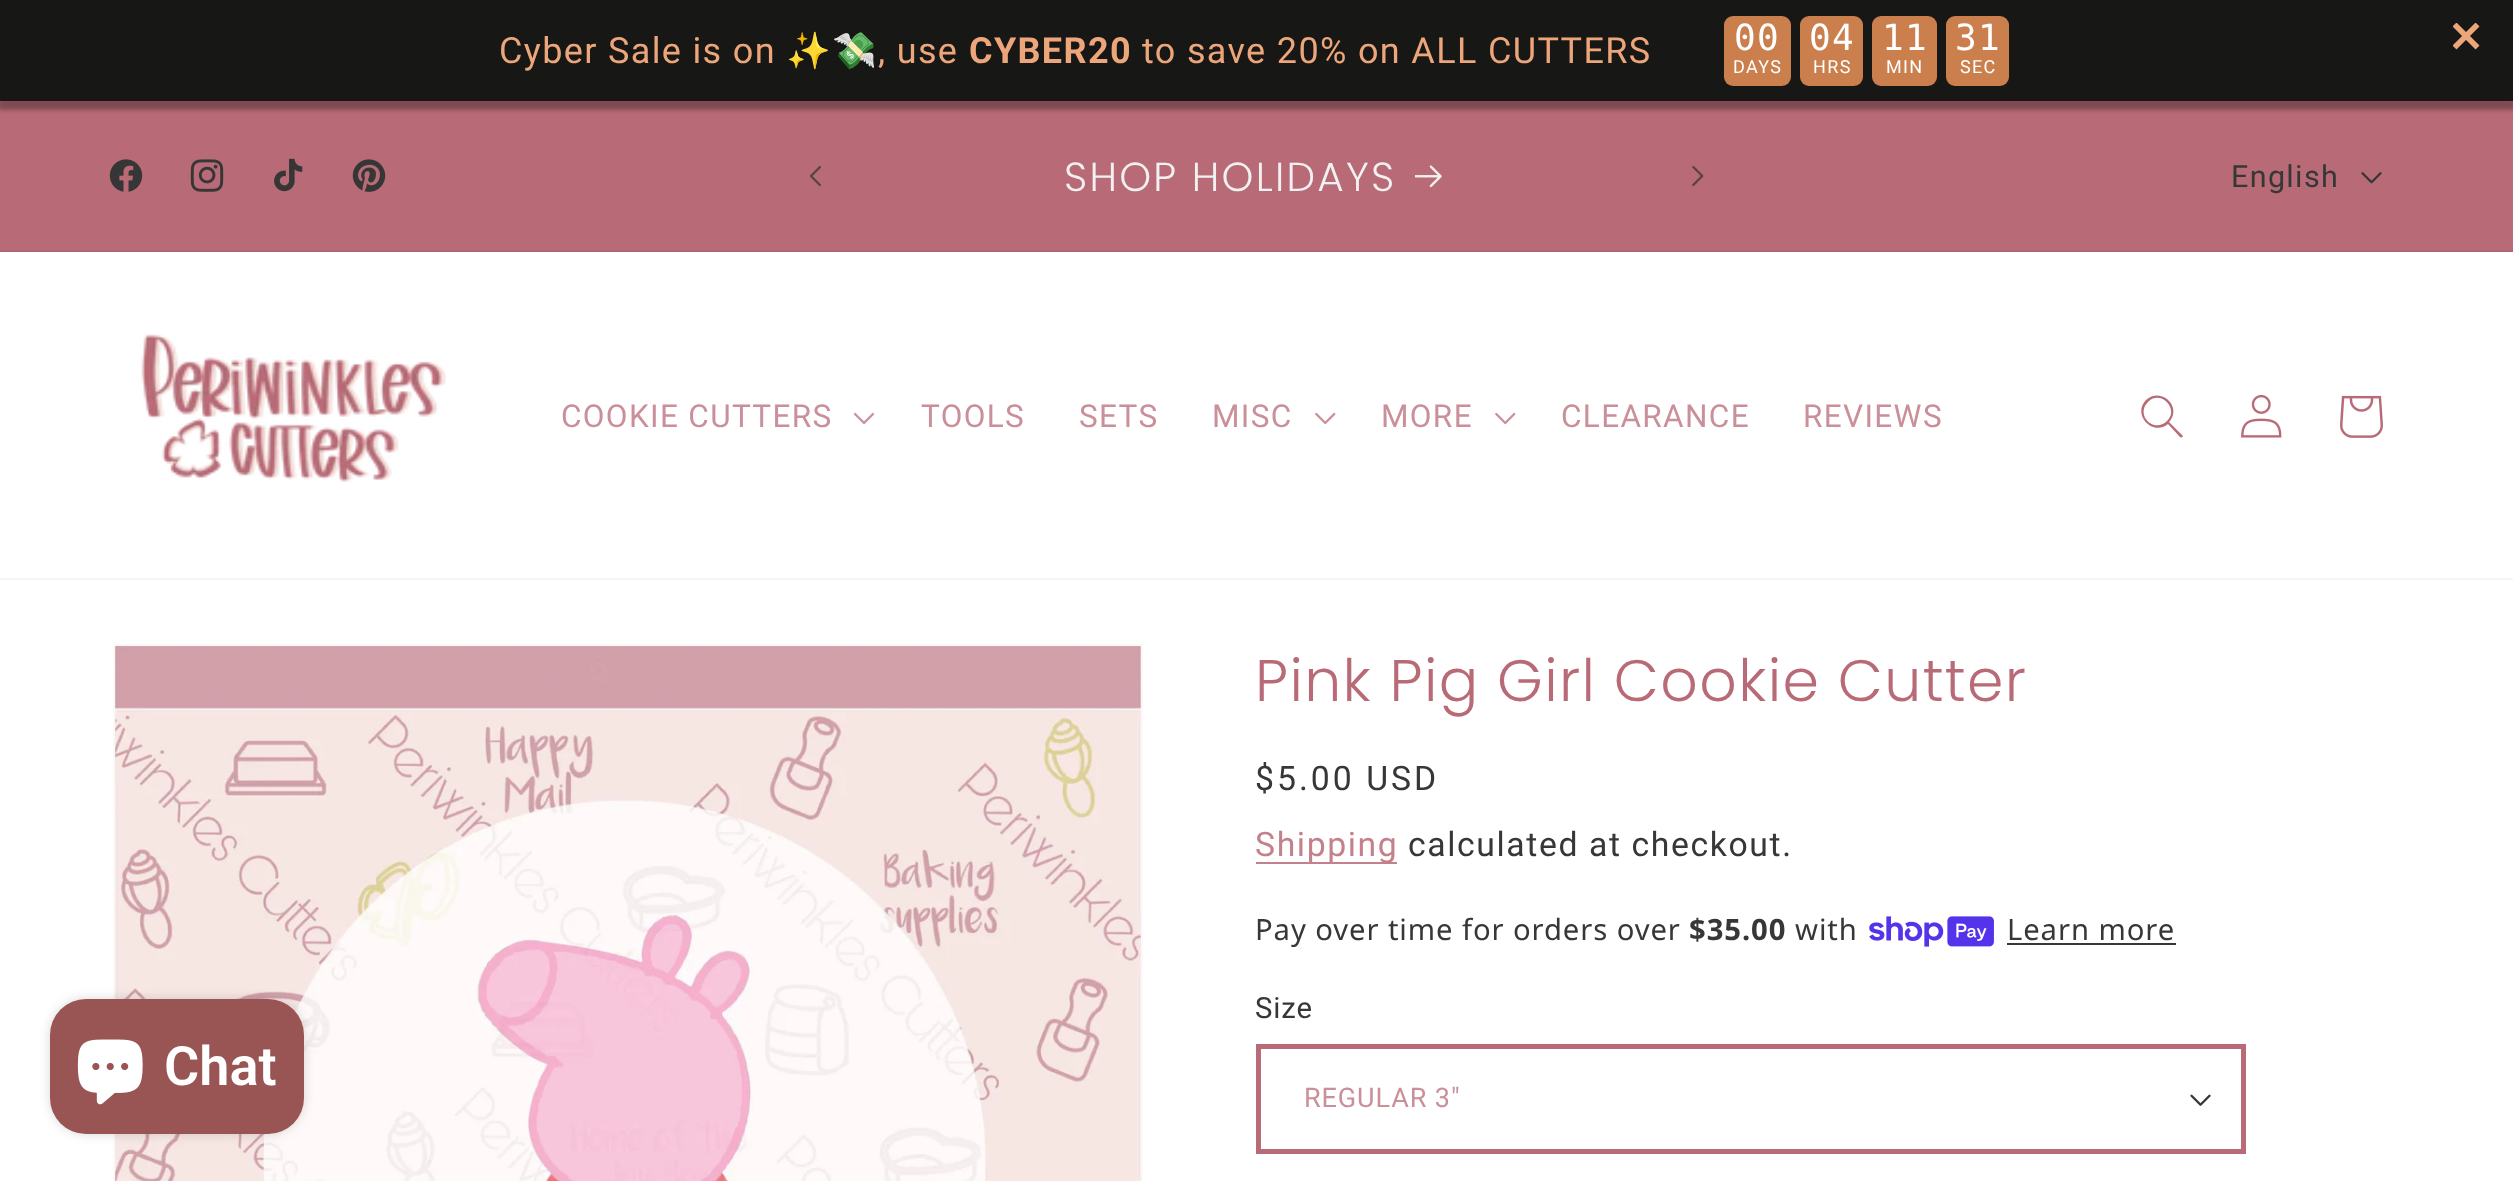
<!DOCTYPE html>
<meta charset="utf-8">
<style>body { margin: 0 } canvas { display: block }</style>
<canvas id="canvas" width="2513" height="1181"></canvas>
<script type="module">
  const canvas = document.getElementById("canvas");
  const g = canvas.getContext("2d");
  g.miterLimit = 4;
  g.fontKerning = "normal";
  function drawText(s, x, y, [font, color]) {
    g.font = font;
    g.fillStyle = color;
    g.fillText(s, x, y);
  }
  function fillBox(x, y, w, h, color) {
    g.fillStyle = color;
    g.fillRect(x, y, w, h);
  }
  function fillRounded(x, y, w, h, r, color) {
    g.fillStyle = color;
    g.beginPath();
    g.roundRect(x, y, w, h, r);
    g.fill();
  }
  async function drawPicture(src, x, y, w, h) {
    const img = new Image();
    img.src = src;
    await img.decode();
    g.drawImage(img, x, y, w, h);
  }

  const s1 = ["36px Roboto", "#ECA67A"];
  const s2 = ["36px Noto Color Emoji", "#ECA67A"];
  const s3 = ["bold 36px Roboto", "#ECA67A"];
  const s4 = ["36px DejaVu Sans Mono", "#FFFFFF"];
  const s5 = ["18px Roboto", "#FFFFFF"];
  const s6 = ["300 40.5px Poppins", "#F1F1F1"];
  const s7 = ["30.5px Roboto", "#363737"];
  const s8 = ["31.5px Roboto", "#CA9099"];
  const s9 = ["600 54px Roboto", "#FFFFFF"];
  const s10 = ["300 58.5px Poppins", "#B86B77"];
  const s11 = ["33.75px Roboto", "#363737"];
  const s12 = ["33.75px Roboto", "#C3818B"];
  const s13 = ["29.25px Noto Sans", "#363737"];
  const s14 = ["bold 29.25px Noto Sans", "#363737"];
  const s15 = ["29.25px Roboto", "#363737"];
  const s16 = ["27px Roboto", "#CA9099"];

  fillBox(0, 0, 2513, 1181, "#FFFFFF");
  fillBox(0, 101, 2513, 149, "#B86B77");
  g.fillStyle = "rgba(0, 0, 0, 0.3)";
  g.filter = "blur(2px)";
  g.beginPath();
  g.rect(-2, 5, 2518, 105);
  g.fill();
  g.filter = "none";
  fillBox(0, 0, 2513, 101, "#171716");
  g.letterSpacing = "1.35px";
  drawText("Cyber Sale is on", 499, 63, s1);
  drawText("✨💸", 786, 63, s2);
  drawText(", use", 878, 63, s1);
  drawText("CYBER20", 969, 63, s3);
  drawText("to save 20% on ALL CUTTERS", 1142, 63, s1);
  fillRounded(1724, 16, 67, 70, 9, "#CA7F4C");
  drawText("00", 1734, 50, s4);
  drawText("DAYS", 1733, 73, s5);
  fillRounded(1800, 16, 63, 70, 9, "#CA7F4C");
  drawText("04", 1809, 50, s4);
  drawText("HRS", 1813, 73, s5);
  fillRounded(1872, 16, 65, 70, 9, "#CA7F4C");
  drawText("11", 1882, 50, s4);
  drawText("MIN", 1886, 73, s5);
  fillRounded(1946, 16, 63, 70, 9, "#CA7F4C");
  drawText("31", 1955, 50, s4);
  drawText("SEC", 1960, 73, s5);
  await drawPicture("pic1.png", 2453, 23, 27, 27);
  fillBox(0, 250, 2513, 2, "#AE6772");
  await drawPicture("pic2.png", 109, 159, 34, 33);
  await drawPicture("pic3.png", 190, 159, 34, 33);
  await drawPicture("pic4.png", 274, 158, 29, 34);
  await drawPicture("pic5.png", 352, 159, 34, 33);
  await drawPicture("pic6.png", 809, 166, 12, 21);
  g.letterSpacing = "2.25px";
  drawText("SHOP HOLIDAYS", 1064, 191, s6);
  await drawPicture("pic7.png", 1415, 165, 27, 23);
  await drawPicture("pic8.png", 1692, 165, 12, 22);
  g.letterSpacing = "1.35px";
  drawText("English", 2231, 187, s7);
  await drawPicture("pic9.png", 2361, 172, 21, 12);
  fillBox(0, 578, 2513, 2, "#F9F3F4");
  await drawPicture("pic10.png", 141, 334, 305, 148);
  drawText("COOKIE CUTTERS", 561, 427, s8);
  await drawPicture("pic11.png", 853, 412, 22, 13);
  drawText("TOOLS", 921, 427, s8);
  drawText("SETS", 1079, 427, s8);
  drawText("MISC", 1212, 427, s8);
  await drawPicture("pic12.png", 1315, 412, 21, 13);
  drawText("MORE", 1381, 427, s8);
  await drawPicture("pic12.png", 1495, 412, 21, 13);
  drawText("CLEARANCE", 1561, 427, s8);
  drawText("REVIEWS", 1803, 427, s8);
  g.fillStyle = "#B86B77";
  g.beginPath();
  g.moveTo(2167, 421);
  g.bezierCurveTo(2154, 434, 2135, 415, 2148, 402);
  g.bezierCurveTo(2160, 389, 2180, 409, 2167, 421);
  g.moveTo(2168, 424);
  g.bezierCurveTo(2152, 437, 2132, 414, 2146, 400);
  g.bezierCurveTo(2161, 386, 2183, 407, 2169, 422);
  g.lineTo(2183, 436);
  g.bezierCurveTo(2183, 437, 2181, 438, 2180, 437);
  g.closePath();
  g.fill("evenodd");
  await drawPicture("pic13.png", 2241, 394, 41, 44);
  await drawPicture("pic14.png", 2340, 395, 43, 43);
  g.strokeStyle = "#FBF8F8";
  g.lineWidth = 2;
  g.strokeRect(114, 645, 1028, 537);
  await drawPicture("pic16.png", 115, 646, 1026, 535);
  g.fillStyle = "rgba(0, 0, 0, 0.15)";
  g.filter = "blur(5.5px)";
  g.beginPath();
  g.roundRect(50, 999, 254, 135, 36);
  g.fill();
  g.filter = "none";
  fillRounded(50, 999, 254, 135, 36, "#995454");
  await drawPicture("pic15.png", 77, 1039, 66, 66);
  g.letterSpacing = "0px";
  drawText("Chat", 164, 1085, s9);
  g.letterSpacing = "1.4px";
  drawText("Pink Pig Girl Cookie Cutter", 1255, 701, s10);
  g.letterSpacing = "3px";
  drawText("$5.00 USD", 1255, 790, s11);
  fillBox(1256, 862, 141, 2, "#C3818B");
  g.letterSpacing = "1.6px";
  drawText("Shipping", 1255, 856, s12);
  drawText("calculated at checkout.", 1408, 856, s11);
  g.letterSpacing = "0.9px";
  drawText("Pay over time for orders over", 1255, 940, s13);
  drawText("$35.00", 1689, 940, s14);
  drawText("with", 1795, 940, s13);
  await drawPicture("pic17.png", 1869, 916, 125, 31);
  drawText("Learn more", 2007, 940, s13);
  fillBox(2007, 943, 169, 2, "#363737");
  drawText("Size", 1255, 1018, s15);
  await drawPicture("pic18.png", 2190, 1094, 21, 12);
  g.strokeStyle = "#B86B77";
  g.lineWidth = 5;
  g.strokeRect(1258.5, 1046.5, 985, 105);
  drawText("REGULAR 3\"", 1304, 1107, s16);
</script>
